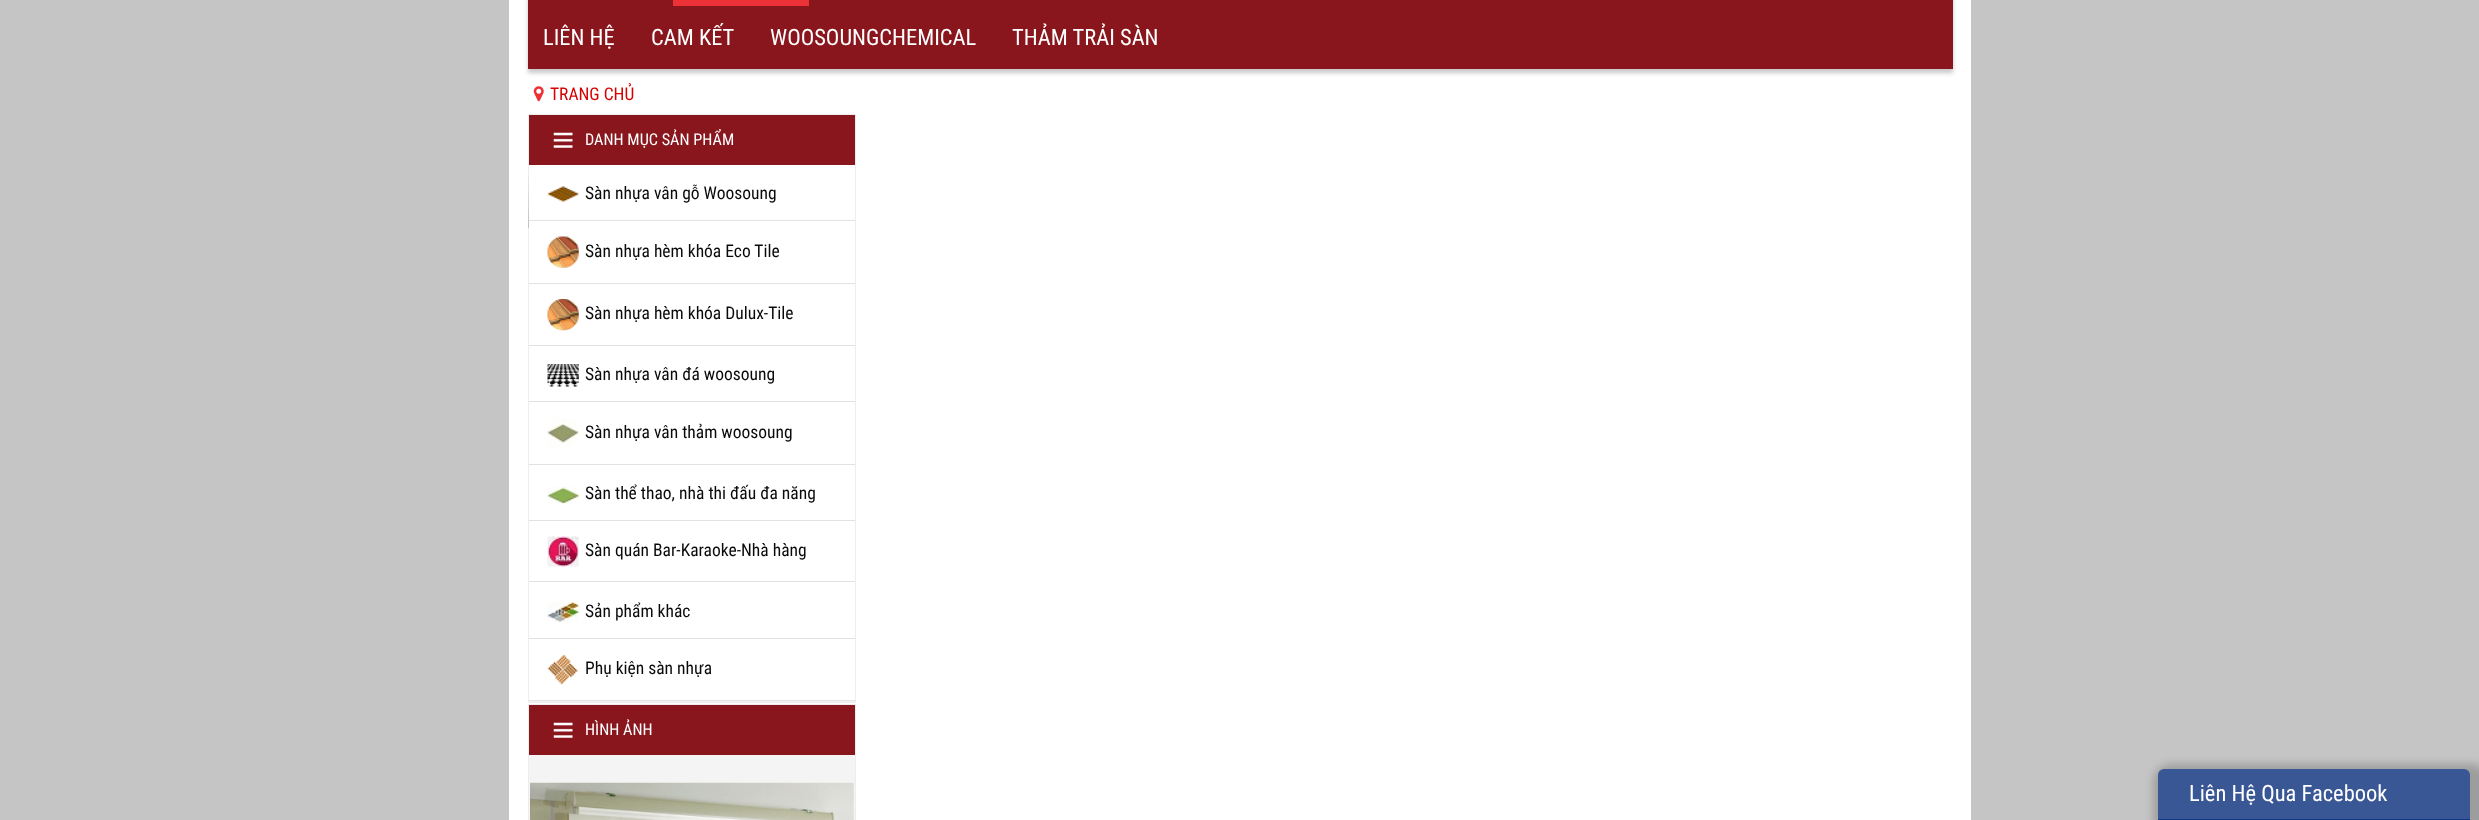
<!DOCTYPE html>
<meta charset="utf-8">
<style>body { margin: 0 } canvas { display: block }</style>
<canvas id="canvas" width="2479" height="820"></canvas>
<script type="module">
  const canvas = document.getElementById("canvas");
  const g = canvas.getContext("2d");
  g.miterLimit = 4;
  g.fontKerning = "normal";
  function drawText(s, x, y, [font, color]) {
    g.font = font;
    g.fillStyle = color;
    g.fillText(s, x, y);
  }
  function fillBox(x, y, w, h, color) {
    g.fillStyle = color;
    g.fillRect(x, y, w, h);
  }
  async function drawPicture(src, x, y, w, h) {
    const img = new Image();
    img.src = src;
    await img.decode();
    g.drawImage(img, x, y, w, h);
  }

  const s1 = ["22.5px Roboto Condensed", "#FFFFFF"];
  const s2 = ["17.5px Roboto Condensed", "#D60202"];
  const s3 = ["16.25px Roboto Condensed", "#FFFFFF"];
  const s4 = ["17.5px Roboto Condensed", "#0A0A0A"];

  fillBox(0, 0, 2479, 820, "#C5C5C5");
  fillBox(509, 0, 1462, 820, "#FFFFFF");
  g.fillStyle = "#C8C8C8";
  g.filter = "blur(2px)";
  g.beginPath();
  g.rect(528, -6, 1425, 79);
  g.fill();
  g.filter = "none";
  fillBox(528, 0, 1425, 69, "#89161D");
  fillBox(673, 0, 136, 6, "#EC3237");
  drawText("LIÊN HỆ", 543, 45, s1);
  drawText("CAM KẾT", 651, 45, s1);
  drawText("WOOSOUNGCHEMICAL", 770, 45, s1);
  drawText("THẢM TRẢI SÀN", 1012, 45, s1);
  await drawPicture("pic1.png", 533, 86, 11, 16);
  drawText("TRANG CHỦ", 550, 100, s2);
  fillBox(529, 701, 326, 1, "#F4F4F4");
  g.strokeStyle = "#EDEDED";
  g.strokeRect(528.5, 114.5, 327, 588);
  fillBox(529, 115, 326, 50, "#89161D");
  await drawPicture("pic2.png", 553, 132, 20, 16);
  drawText("DANH MỤC SẢN PHẨM", 585, 145, s3);
  await drawPicture("pic3.png", 528, 175, 1, 53);
  fillBox(529, 220, 326, 1, "#E2E2E2");
  await drawPicture("pic4.png", 547, 186, 32, 16);
  drawText("Sàn nhựa vân gỗ Woosoung", 585, 199, s4);
  fillBox(529, 283, 326, 1, "#E2E2E2");
  await drawPicture("pic5.png", 547, 236, 32, 32);
  drawText("Sàn nhựa hèm khóa Eco Tile", 585, 257, s4);
  fillBox(529, 345, 326, 1, "#E2E2E2");
  await drawPicture("pic6.png", 547, 299, 32, 32);
  drawText("Sàn nhựa hèm khóa Dulux-Tile", 585, 319, s4);
  fillBox(529, 401, 326, 1, "#E2E2E2");
  await drawPicture("pic7.png", 547, 364, 32, 23);
  drawText("Sàn nhựa vân đá woosoung", 585, 380, s4);
  fillBox(529, 464, 326, 1, "#E2E2E2");
  await drawPicture("pic8.png", 547, 418, 32, 31);
  drawText("Sàn nhựa vân thảm woosoung", 585, 438, s4);
  fillBox(529, 520, 326, 1, "#E2E2E2");
  await drawPicture("pic9.png", 547, 486, 32, 18);
  drawText("Sàn thể thao, nhà thi đấu đa năng", 585, 499, s4);
  fillBox(529, 581, 326, 1, "#E2E2E2");
  await drawPicture("pic10.png", 547, 536, 32, 31);
  drawText("Sàn quán Bar-Karaoke-Nhà hàng", 585, 556, s4);
  fillBox(529, 638, 326, 1, "#E2E2E2");
  await drawPicture("pic11.png", 547, 602, 32, 20);
  drawText("Sản phẩm khác", 585, 617, s4);
  fillBox(529, 700, 326, 1, "#E2E2E2");
  await drawPicture("pic12.png", 547, 655, 31, 30);
  drawText("Phụ kiện sàn nhựa", 585, 674, s4);
  fillBox(529, 755, 326, 65, "#F4F4F4");
  g.strokeRect(528.5, 704.5, 327, 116);
  fillBox(529, 705, 326, 50, "#89161D");
  await drawPicture("pic2.png", 553, 722, 20, 16);
  drawText("HÌNH ẢNH", 585, 735, s3);
  await drawPicture("pic13.png", 530, 782, 324, 38);
  g.fillStyle = "rgba(0, 0, 0, 0.2)";
  g.filter = "blur(4px)";
  g.beginPath();
  g.roundRect(2153, 764, 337, 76, 19);
  g.fill();
  g.filter = "none";
  g.fillStyle = "#3A5795";
  g.beginPath();
  g.roundRect(2158, 769, 312, 51, [6, 6, 0, 0]);
  g.fill();
  fillBox(2158, 819, 312, 1, "#133783");
  drawText("Liên Hệ Qua Facebook", 2189, 801, s1);
</script>
